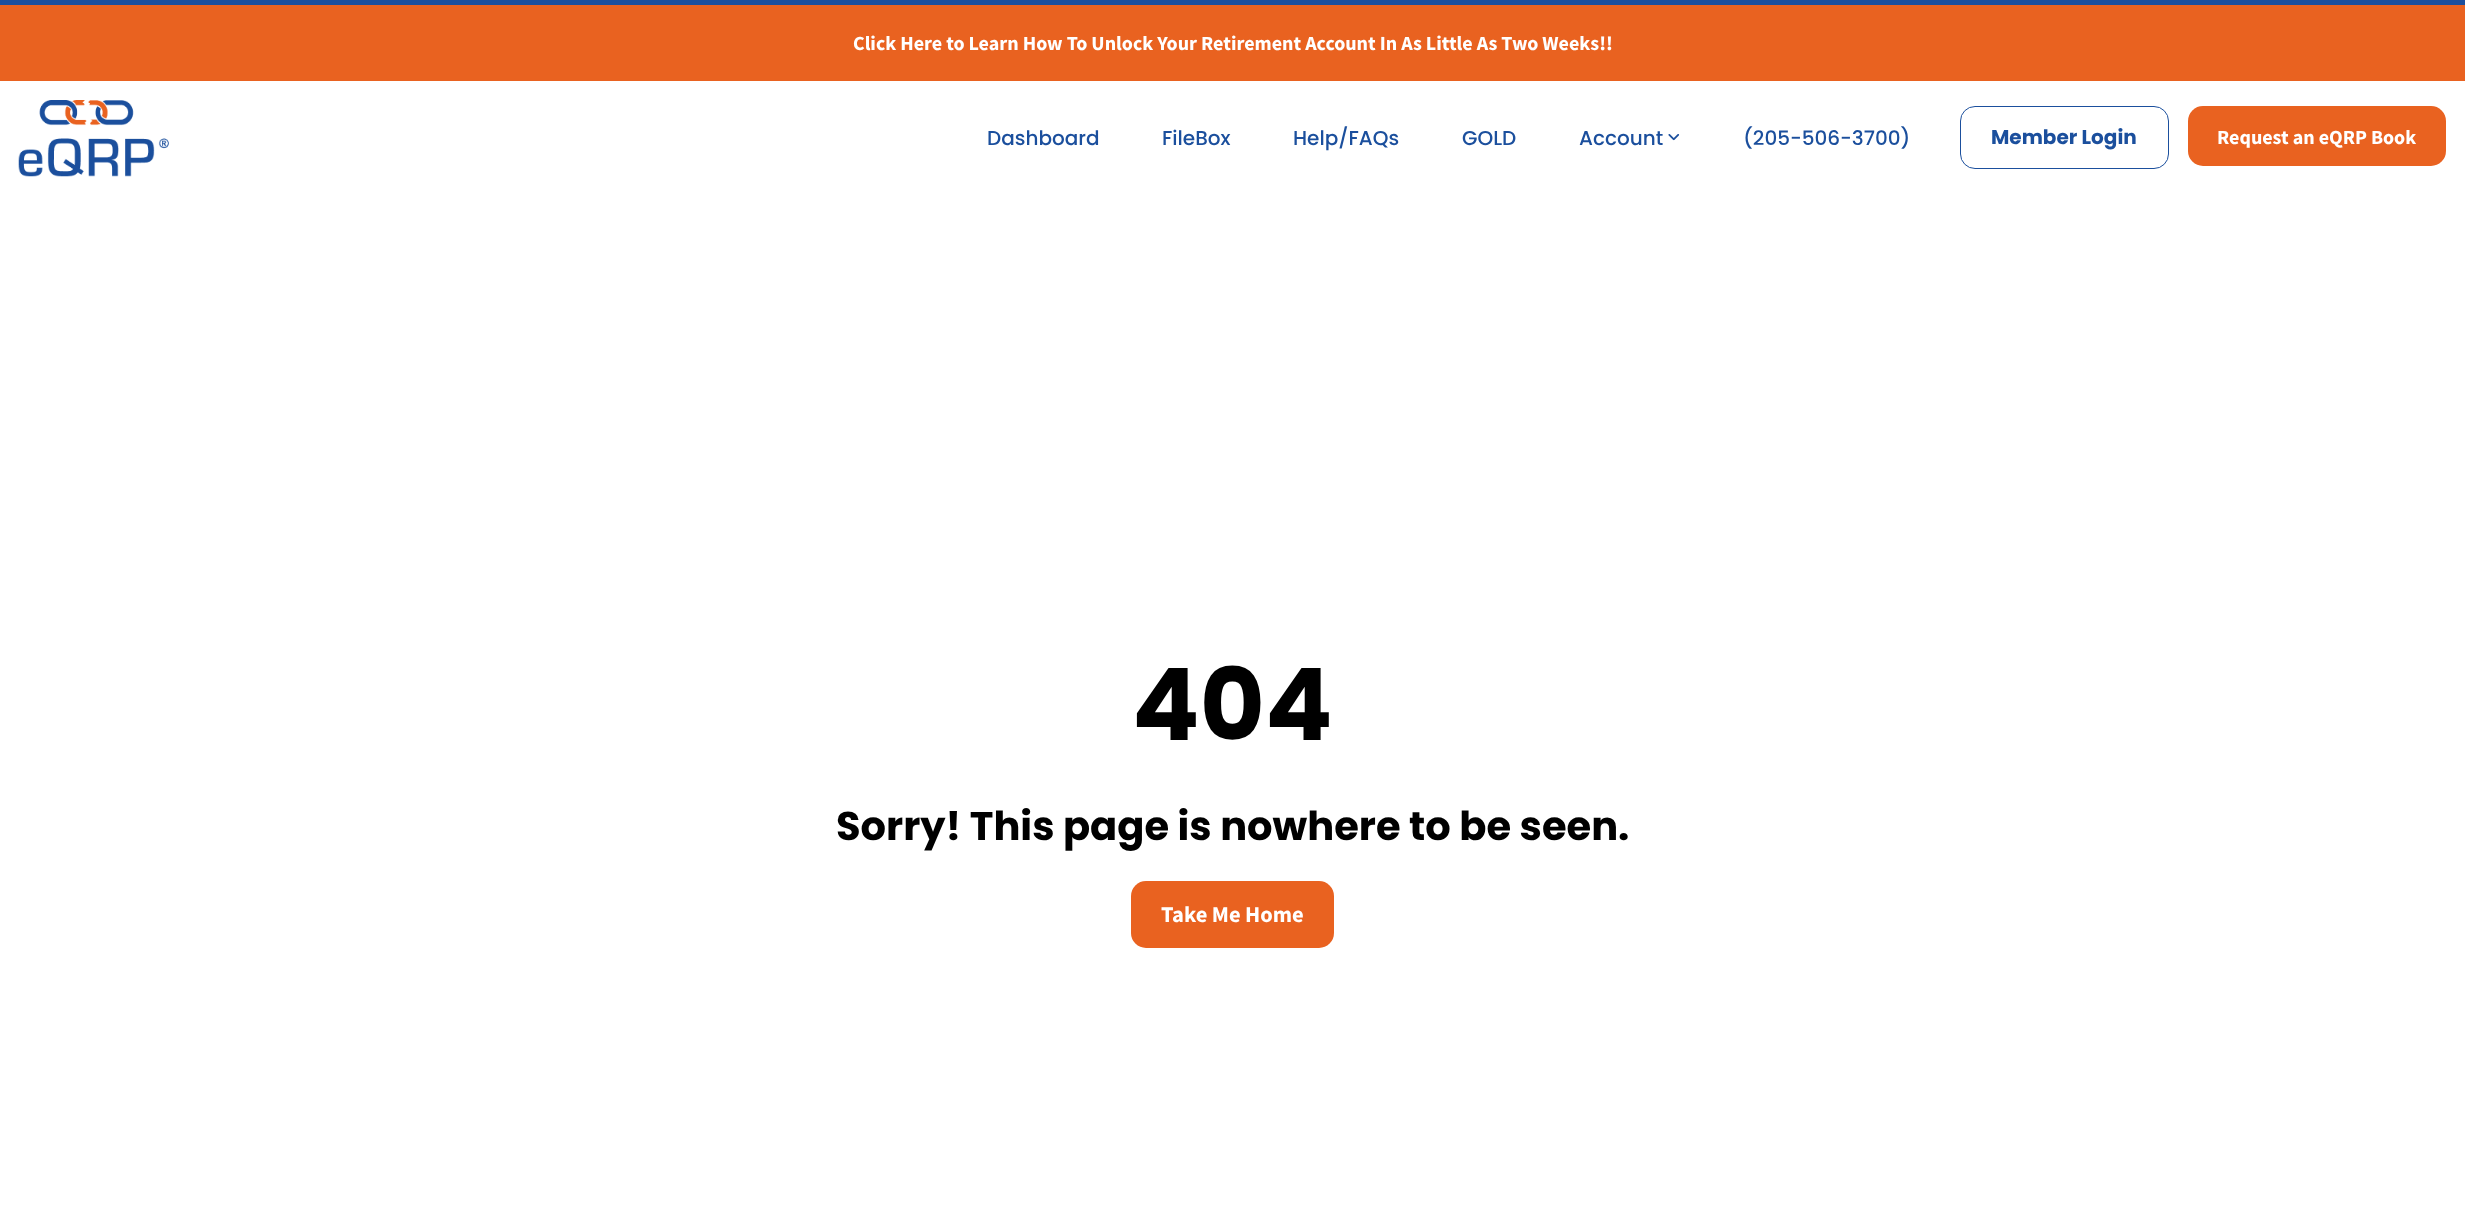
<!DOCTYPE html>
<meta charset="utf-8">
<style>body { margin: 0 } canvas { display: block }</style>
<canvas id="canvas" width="2465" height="1232"></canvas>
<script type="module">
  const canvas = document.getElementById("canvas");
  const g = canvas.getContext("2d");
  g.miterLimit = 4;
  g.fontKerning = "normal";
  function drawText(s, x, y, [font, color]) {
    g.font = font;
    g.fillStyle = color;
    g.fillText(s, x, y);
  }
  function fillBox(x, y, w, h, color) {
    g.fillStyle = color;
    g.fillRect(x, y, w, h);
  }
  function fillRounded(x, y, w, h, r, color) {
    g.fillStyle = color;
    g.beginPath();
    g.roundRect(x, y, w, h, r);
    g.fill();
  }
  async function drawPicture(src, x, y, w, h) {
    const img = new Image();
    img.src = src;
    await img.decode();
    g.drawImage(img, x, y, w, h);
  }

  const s1 = ["bold 20px Source Sans Pro", "#FFFFFF"];
  const s2 = ["500 20px Poppins", "#1B4F9D"];
  const s3 = ["bold 20px Poppins", "#1B4F9D"];
  const s4 = ["bold 100px Poppins", "#000000"];
  const s5 = ["bold 40px Poppins", "#000000"];
  const s6 = ["bold 22.5px Source Sans Pro", "#FFFFFF"];

  fillBox(0, 0, 2465, 1232, "#FFFFFF");
  fillBox(0, 5, 2465, 76, "#E96220");
  fillBox(0, 0, 2465, 5, "#1B4F9D");
  drawText("Click Here to Learn How To Unlock Your Retirement Account In As Little As Two Weeks!!", 853, 50, s1);
  await drawPicture("pic1.png", 18, 100, 151, 77);
  drawText("Dashboard", 987, 145, s2);
  drawText("FileBox", 1162, 145, s2);
  drawText("Help/FAQs", 1293, 145, s2);
  drawText("GOLD", 1462, 145, s2);
  drawText("Account", 1579, 145, s2);
  await drawPicture("pic2.png", 1668, 134, 12, 7);
  drawText("(205-506-3700)", 1743, 145, s2);
  g.beginPath();
  g.roundRect(1960.5, 106.5, 208, 62, 14.5);
  g.strokeStyle = "#1B4F9D";
  g.stroke();
  drawText("Member Login", 1991, 144, s3);
  fillRounded(2188, 106, 258, 60, 15, "#E96220");
  drawText("Request an eQRP Book", 2217, 144, s1);
  drawText("404", 1132, 740, s4);
  drawText("Sorry! This page is nowhere to be seen.", 836, 840, s5);
  fillRounded(1131, 881, 203, 67, 15, "#E96220");
  drawText("Take Me Home", 1161, 922, s6);
</script>
